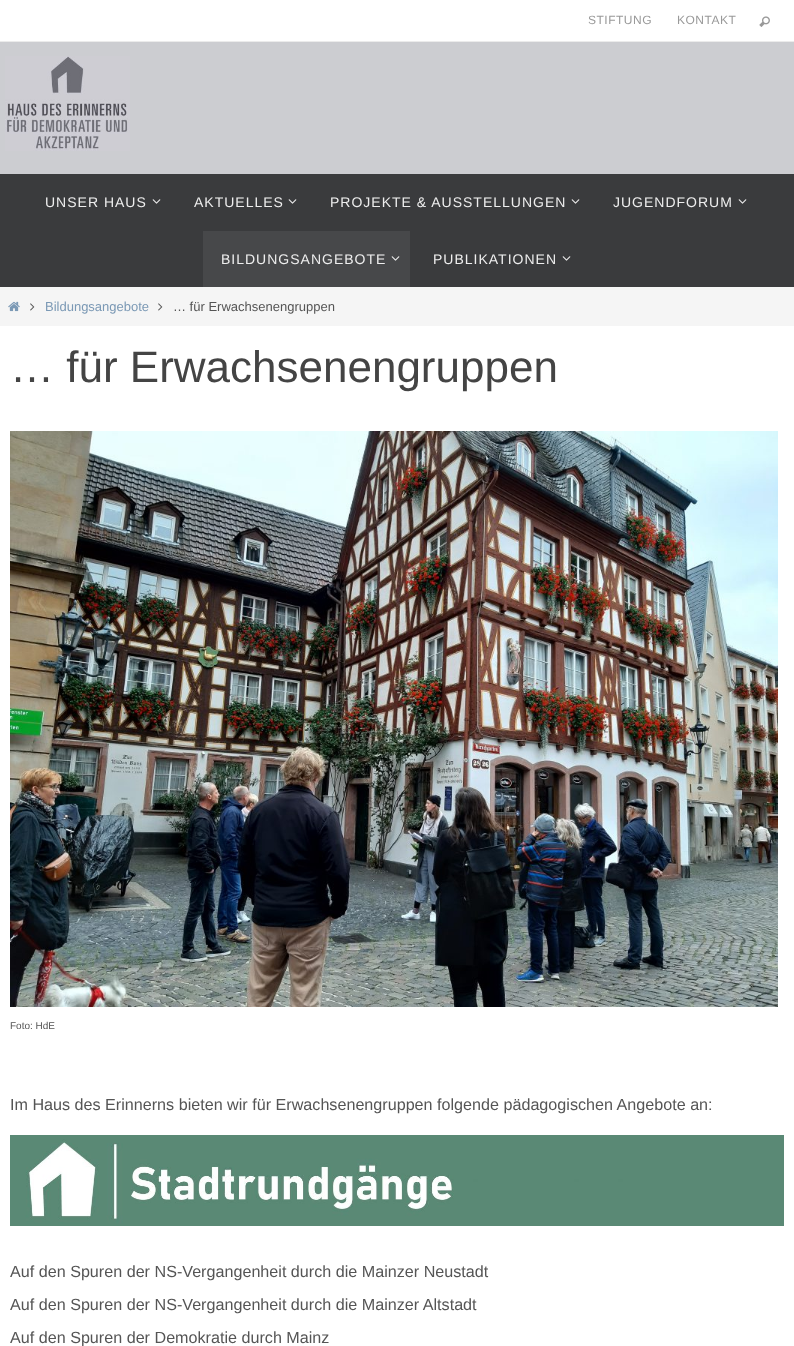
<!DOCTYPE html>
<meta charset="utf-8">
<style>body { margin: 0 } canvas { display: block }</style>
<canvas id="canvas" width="794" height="1346"></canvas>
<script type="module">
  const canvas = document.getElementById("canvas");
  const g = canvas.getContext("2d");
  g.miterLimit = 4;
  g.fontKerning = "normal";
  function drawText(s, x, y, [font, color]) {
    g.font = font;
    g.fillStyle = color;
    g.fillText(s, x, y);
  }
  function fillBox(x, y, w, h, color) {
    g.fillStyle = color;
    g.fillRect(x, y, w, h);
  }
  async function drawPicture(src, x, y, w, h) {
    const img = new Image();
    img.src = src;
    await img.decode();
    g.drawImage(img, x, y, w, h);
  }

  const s1 = ["12px Liberation Sans", "#999999"];
  const s2 = ["14px Liberation Sans", "#EEEEEE"];
  const s3 = ["13px Liberation Sans", "#7B99B5"];
  const s4 = ["13px Liberation Sans", "#555555"];
  const s5 = ["44px Liberation Sans", "#444444"];
  const s6 = ["10px Liberation Sans", "#555555"];
  const s7 = ["16.15px Liberation Sans", "#555555"];

  fillBox(0, 0, 794, 1346, "#FFFFFF");
  fillBox(0, 41, 794, 1, "#EBEBEB");
  g.letterSpacing = "0.5px";
  drawText("STIFTUNG", 588, 24, s1);
  drawText("KONTAKT", 677, 24, s1);
  await drawPicture("pic1.png", 759, 16, 11, 11);
  fillBox(0, 42, 794, 132, "#CCCDD1");
  await drawPicture("pic2.png", 5, 56, 125, 95);
  fillBox(0, 174, 794, 113, "#3A3B3D");
  g.letterSpacing = "1px";
  drawText("UNSER HAUS", 45, 207, s2);
  await drawPicture("pic3.png", 152, 199, 9, 5);
  drawText("AKTUELLES", 194, 207, s2);
  await drawPicture("pic3.png", 288, 199, 9, 5);
  drawText("PROJEKTE & AUSSTELLUNGEN", 330, 207, s2);
  await drawPicture("pic3.png", 571, 199, 9, 5);
  drawText("JUGENDFORUM", 613, 207, s2);
  await drawPicture("pic3.png", 738, 199, 9, 5);
  fillBox(203, 231, 207, 56, "#47484A");
  drawText("BILDUNGSANGEBOTE", 221, 264, s2);
  await drawPicture("pic4.png", 391, 256, 9, 5);
  drawText("PUBLIKATIONEN", 433, 264, s2);
  await drawPicture("pic3.png", 562, 256, 9, 5);
  fillBox(0, 287, 794, 39, "#F5F5F5");
  await drawPicture("pic5.png", 8, 301, 12, 11);
  await drawPicture("pic6.png", 30, 303, 5, 8);
  g.letterSpacing = "0px";
  drawText("Bildungsangebote", 45, 311, s3);
  await drawPicture("pic6.png", 158, 303, 5, 8);
  drawText("… für Erwachsenengruppen", 173, 311, s4);
  drawText("… für Erwachsenengruppen", 10, 382, s5);
  await drawPicture("pic7.png", 10, 431, 768, 576);
  drawText("Foto: HdE", 10, 1029, s6);
  drawText("Im Haus des Erinnerns bieten wir für Erwachsenengruppen folgende pädagogischen Angebote an:", 10, 1110, s7);
  await drawPicture("pic8.png", 10, 1135, 774, 91);
  drawText("Auf den Spuren der NS-Vergangenheit durch die Mainzer Neustadt", 10, 1277, s7);
  drawText("Auf den Spuren der NS-Vergangenheit durch die Mainzer Altstadt", 10, 1310, s7);
  drawText("Auf den Spuren der Demokratie durch Mainz", 10, 1343, s7);
</script>
